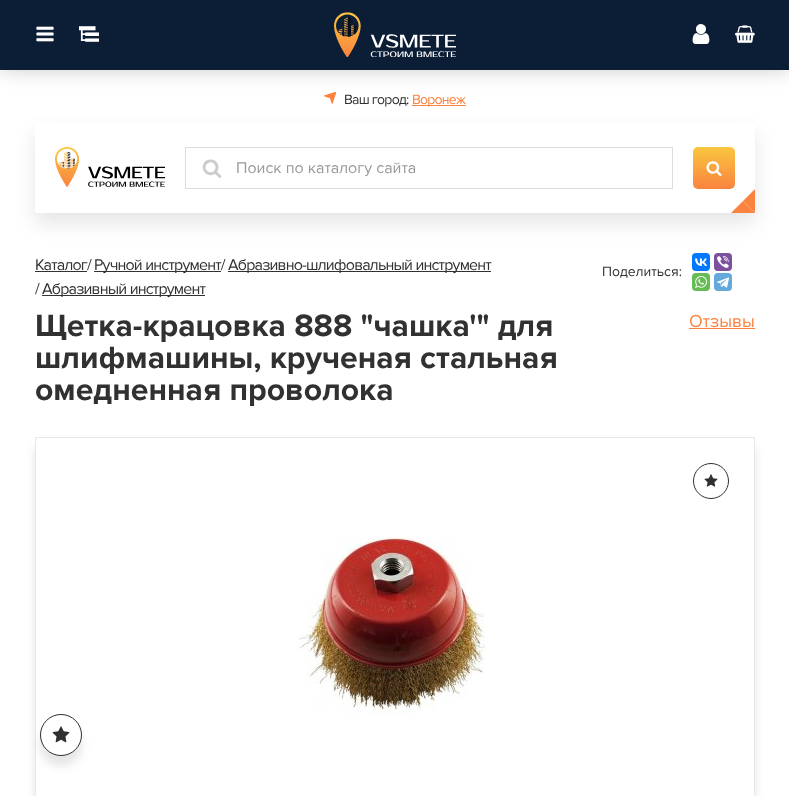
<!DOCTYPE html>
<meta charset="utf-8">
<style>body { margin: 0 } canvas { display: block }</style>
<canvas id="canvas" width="789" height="796"></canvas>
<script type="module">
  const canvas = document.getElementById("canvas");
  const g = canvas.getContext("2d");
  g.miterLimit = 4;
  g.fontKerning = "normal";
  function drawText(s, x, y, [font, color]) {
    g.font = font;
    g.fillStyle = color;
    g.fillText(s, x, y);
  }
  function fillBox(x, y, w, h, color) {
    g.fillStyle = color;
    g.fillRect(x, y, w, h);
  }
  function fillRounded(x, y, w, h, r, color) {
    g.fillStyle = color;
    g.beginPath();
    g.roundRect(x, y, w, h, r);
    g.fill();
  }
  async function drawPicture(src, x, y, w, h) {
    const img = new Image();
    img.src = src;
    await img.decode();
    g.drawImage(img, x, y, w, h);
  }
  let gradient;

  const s1 = ["20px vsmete", "#FFFFFF"];
  const s2 = ["14px vsmete", "#FA833F"];
  const s3 = ["14px Proxima Nova", "#313131"];
  const s4 = ["14px Proxima Nova", "#FA833F"];
  const s5 = ["20px vsmete", "#CCCCCC"];
  const s6 = ["16px Proxima Nova", "#999999"];
  const s7 = ["16px vsmete", "#FFFFFF"];
  const s8 = ["16px Proxima Nova", "#313131"];
  const s9 = ["bold 32px Proxima Nova", "#313131"];
  const s10 = ["18px Proxima Nova", "#FA833F"];
  const s11 = ["14px vsmete", "#313131"];
  const s12 = ["18px vsmete", "#313131"];

  fillBox(0, 0, 789, 796, "#FFFFFF");
  g.fillStyle = "rgba(0, 0, 0, 0.2)";
  g.filter = "blur(10px)";
  g.beginPath();
  g.rect(0, 0, 789, 70);
  g.fill();
  g.filter = "none";
  fillBox(0, 0, 789, 70, "#0C1D36");
  drawText("o", 35, 44, s1);
  drawText("k", 79, 44, s1);
  await drawPicture("pic1.png", 334, 12, 122, 45);
  drawText("m", 691, 44, s1);
  drawText("j", 735, 44, s1);
  g.letterSpacing = "-0.75px";
  drawText("l", 323, 105, s2);
  drawText("Ваш город:", 344, 104, s3);
  fillBox(412, 105, 54, 1, "#FA833F");
  drawText("Воронеж", 412, 104, s4);
  fillRounded(692, 253, 18, 18, 4, "#0077FF");
  fillRounded(714, 253, 18, 18, 4, "#7B519D");
  g.save();
  g.beginPath();
  g.moveTo(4, 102);
  g.lineTo(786, 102);
  g.lineTo(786, 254);
  g.lineTo(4, 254);
  g.closePath();
  g.moveTo(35, 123);
  g.lineTo(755, 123);
  g.lineTo(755, 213);
  g.lineTo(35, 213);
  g.closePath();
  g.clip("evenodd");
  g.fillStyle = "rgba(0, 0, 0, 0.1)";
  g.filter = "blur(10px)";
  g.beginPath();
  g.rect(35, 133, 720, 90);
  g.fill();
  g.filter = "none";
  g.restore();
  await drawPicture("pic2.png", 55, 147, 110, 40);
  g.strokeStyle = "#DDDDDD";
  g.strokeRect(185.5, 147.5, 487, 41);
  g.letterSpacing = "0px";
  drawText("c", 202, 178, s5);
  drawText("Поиск по каталогу сайта", 236, 173, s6);
  gradient = g.createLinearGradient(714, 147, 714, 189);
  gradient.addColorStop(0, "#FAC63F");
  gradient.addColorStop(1, "#FA833F");
  g.fillStyle = gradient;
  g.beginPath();
  g.roundRect(693, 147, 42, 42, 5);
  g.fill();
  drawText("c", 706, 176, s7);
  g.fillStyle = "#FA833F";
  g.beginPath();
  g.moveTo(755, 189);
  g.lineTo(755, 213);
  g.lineTo(743, 201);
  g.closePath();
  g.fill();
  g.beginPath();
  g.moveTo(755, 213);
  g.lineTo(731, 213);
  g.lineTo(743, 201);
  g.closePath();
  g.fill();
  g.letterSpacing = "-0.8px";
  drawText("Каталог/", 35, 270, s8);
  fillBox(35, 271, 52, 1, "#313131");
  fillBox(94, 271, 127, 1, "#313131");
  drawText("Ручной инструмент/", 94, 270, s8);
  fillBox(228, 271, 263, 1, "#313131");
  drawText("Абразивно-шлифовальный инструмент", 228, 270, s8);
  drawText("/", 35, 294, s8);
  fillBox(42, 295, 163, 1, "#313131");
  drawText("Абразивный инструмент", 42, 294, s8);
  g.letterSpacing = "0px";
  drawText("Поделиться:", 602, 276, s3);
  await drawPicture("pic3.png", 695, 258, 12, 8);
  await drawPicture("pic4.png", 717, 256, 12, 12);
  fillRounded(692, 273, 18, 18, 4, "#65BC54");
  await drawPicture("pic5.png", 695, 276, 12, 12);
  fillRounded(714, 273, 18, 18, 4, "#64A9DC");
  await drawPicture("pic6.png", 717, 277, 12, 11);
  drawText("Щетка-крацовка 888 \"чашка'\" для", 35, 336, s9);
  drawText("шлифмашины, крученая стальная", 35, 368, s9);
  drawText("омедненная проволокa", 35, 400, s9);
  drawText("Отзывы", 689, 327, s10);
  fillBox(689, 328, 66, 1, "#FA833F");
  g.save();
  g.beginPath();
  g.moveTo(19, 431);
  g.lineTo(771, 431);
  g.lineTo(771, 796);
  g.lineTo(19, 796);
  g.closePath();
  g.moveTo(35, 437);
  g.lineTo(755, 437);
  g.lineTo(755, 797);
  g.lineTo(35, 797);
  g.closePath();
  g.clip("evenodd");
  g.fillStyle = "rgba(0, 0, 0, 0.1)";
  g.filter = "blur(5px)";
  g.beginPath();
  g.rect(35, 447, 720, 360);
  g.fill();
  g.filter = "none";
  g.restore();
  g.strokeStyle = "#E8E8E8";
  g.strokeRect(35.5, 437.5, 719, 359);
  g.beginPath();
  g.arc(711, 481, 17.5, 0, Math.PI * 2);
  g.strokeStyle = "#313131";
  g.stroke();
  drawText("b", 704, 488, s11);
  await drawPicture("pic7.png", 299, 537, 187, 177);
  g.fillStyle = "rgba(0, 0, 0, 0.1)";
  g.filter = "blur(5px)";
  g.beginPath();
  g.roundRect(40, 724, 42, 42, 21);
  g.fill();
  g.filter = "none";
  g.fillStyle = "#FFFFFF";
  g.beginPath();
  g.arc(61, 735, 20.5, 0, Math.PI * 2);
  g.fill();
  g.stroke();
  drawText("b", 52, 744, s12);
</script>
